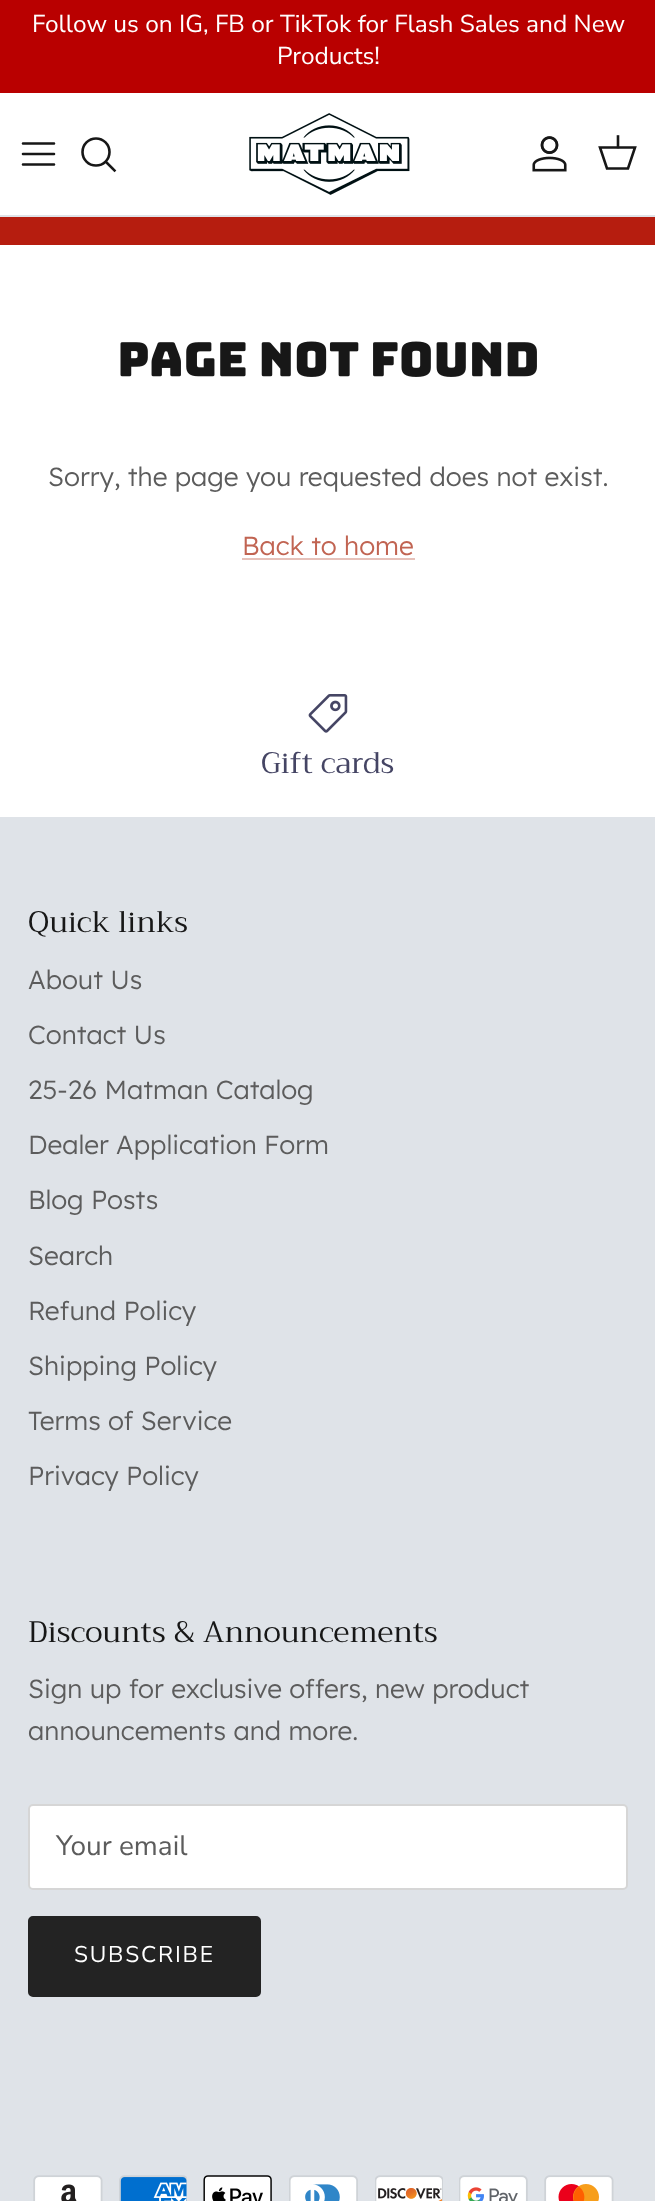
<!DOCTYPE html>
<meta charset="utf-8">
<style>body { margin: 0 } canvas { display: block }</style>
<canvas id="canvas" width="655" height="2201"></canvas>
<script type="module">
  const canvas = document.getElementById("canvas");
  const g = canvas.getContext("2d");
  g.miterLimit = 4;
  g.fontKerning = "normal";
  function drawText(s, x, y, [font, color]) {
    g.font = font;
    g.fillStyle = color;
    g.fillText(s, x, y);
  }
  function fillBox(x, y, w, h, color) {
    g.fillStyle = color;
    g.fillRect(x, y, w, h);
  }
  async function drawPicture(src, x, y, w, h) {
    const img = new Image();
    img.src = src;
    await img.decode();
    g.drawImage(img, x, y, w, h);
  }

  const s1 = ["24.5px Nunito Sans", "#FFFFFF"];
  const s2 = ["300 26.25px Lexend Deca", "#5C5C5C"];
  const s3 = ["300 26.25px Lexend Deca", "#C16452"];
  const s4 = ["29.6px Trirong", "#454564"];
  const s5 = ["29.6px Trirong", "#171717"];
  const s6 = ["28px Nunito Sans", "#5C5C5C"];
  const s7 = ["22.75px Nunito Sans", "#FFFFFF"];

  fillBox(0, 0, 655, 2201, "#FFFFFF");
  fillBox(0, 0, 655, 93, "#B90000");
  drawText("Follow us on IG, FB or TikTok for Flash Sales and New", 32, 32, s1);
  drawText("Products!", 277, 64, s1);
  fillBox(0, 215, 655, 2, "#DFE3E8");
  g.beginPath();
  g.moveTo(23, 154);
  g.lineTo(54, 154);
  g.moveTo(23, 143.5);
  g.lineTo(54, 143.5);
  g.moveTo(23, 164.5);
  g.lineTo(54, 164.5);
  g.strokeStyle = "#171717";
  g.lineWidth = 2.6;
  g.lineCap = "round";
  g.lineJoin = "round";
  g.stroke();
  g.beginPath();
  g.arc(96, 152, 13.5, 0, Math.PI * 2);
  g.stroke();
  g.beginPath();
  g.moveTo(106.5, 162.5);
  g.lineTo(114.5, 170.5);
  g.lineCap = "square";
  g.lineJoin = "miter";
  g.stroke();
  await drawPicture("pic1.png", 249, 113, 161, 82);
  await drawPicture("pic2.png", 532, 136, 35, 36);
  g.beginPath();
  g.moveTo(600, 147.5);
  g.lineTo(635, 147.5);
  g.lineTo(628, 168.5);
  g.lineTo(607, 168.5);
  g.closePath();
  g.lineCap = "butt";
  g.stroke();
  g.beginPath();
  g.moveTo(618, 147);
  g.lineTo(618, 136.5);
  g.lineCap = "square";
  g.stroke();
  fillBox(0, 217, 655, 28, "#B61D0F");
  await drawPicture("pic3.png", 120, 341, 417, 36);
  drawText("Sorry, the page you requested does not exist.", 48, 486, s2);
  drawText("Back to home", 242, 555, s3);
  fillBox(242, 558, 173, 2, "#E6C1BA");
  await drawPicture("pic4.png", 308, 694, 40, 39);
  drawText("Gift cards", 261, 773, s4);
  fillBox(0, 817, 655, 1384, "#DFE3E8");
  drawText("Quick links", 28, 932, s5);
  drawText("About Us", 28, 989, s2);
  drawText("Contact Us", 28, 1044, s2);
  drawText("25-26 Matman Catalog", 28, 1099, s2);
  drawText("Dealer Application Form", 28, 1154, s2);
  drawText("Blog Posts", 28, 1209, s2);
  drawText("Search", 28, 1265, s2);
  drawText("Refund Policy", 28, 1320, s2);
  drawText("Shipping Policy", 28, 1375, s2);
  drawText("Terms of Service", 28, 1430, s2);
  drawText("Privacy Policy", 28, 1485, s2);
  drawText("Discounts & Announcements", 28, 1642, s5);
  drawText("Sign up for exclusive offers, new product", 28, 1698, s2);
  drawText("announcements and more.", 28, 1740, s2);
  g.fillStyle = "#FFFFFF";
  g.beginPath();
  g.roundRect(29, 1805, 598, 84, 4);
  g.fill();
  g.strokeStyle = "#D6D6D6";
  g.lineWidth = 2;
  g.stroke();
  drawText("Your email", 56, 1855, s6);
  g.fillStyle = "#232323";
  g.beginPath();
  g.roundRect(29, 1917, 231, 79, 4);
  g.fill();
  g.strokeStyle = "#232323";
  g.stroke();
  g.letterSpacing = "1.75px";
  drawText("SUBSCRIBE", 74, 1962, s7);
  await drawPicture("pic5.png", 33, 2175, 70, 26);
  await drawPicture("pic6.png", 119, 2175, 68, 26);
  await drawPicture("pic7.png", 203, 2175, 69, 26);
  await drawPicture("pic8.png", 289, 2175, 69, 26);
  await drawPicture("pic9.png", 375, 2175, 68, 26);
  await drawPicture("pic10.png", 459, 2175, 69, 26);
  await drawPicture("pic11.png", 544, 2175, 70, 26);
</script>
